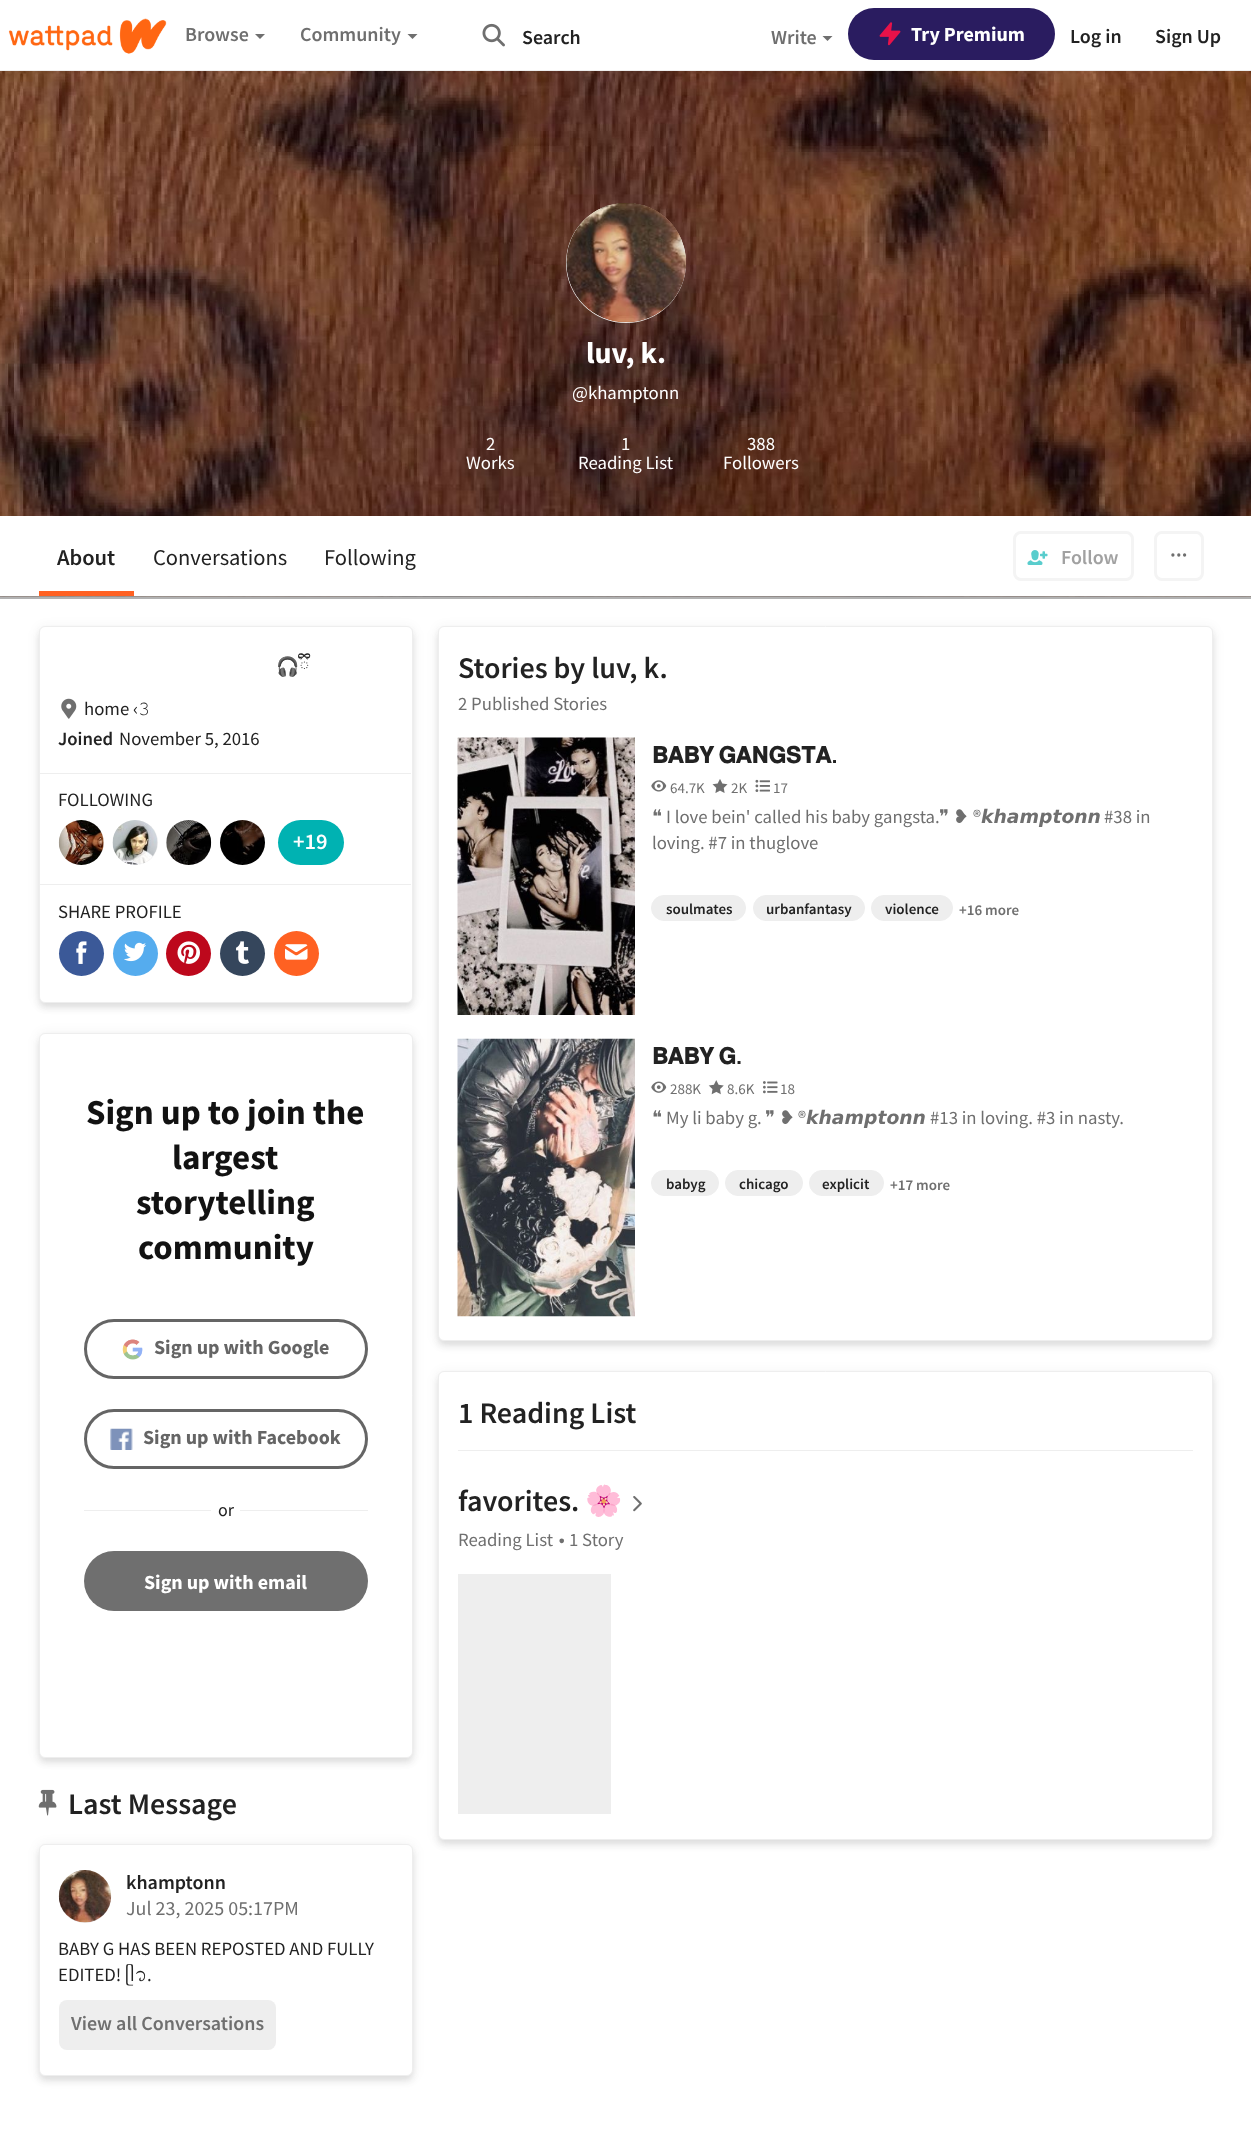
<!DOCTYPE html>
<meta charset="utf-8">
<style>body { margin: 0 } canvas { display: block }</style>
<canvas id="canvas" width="1251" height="2150"></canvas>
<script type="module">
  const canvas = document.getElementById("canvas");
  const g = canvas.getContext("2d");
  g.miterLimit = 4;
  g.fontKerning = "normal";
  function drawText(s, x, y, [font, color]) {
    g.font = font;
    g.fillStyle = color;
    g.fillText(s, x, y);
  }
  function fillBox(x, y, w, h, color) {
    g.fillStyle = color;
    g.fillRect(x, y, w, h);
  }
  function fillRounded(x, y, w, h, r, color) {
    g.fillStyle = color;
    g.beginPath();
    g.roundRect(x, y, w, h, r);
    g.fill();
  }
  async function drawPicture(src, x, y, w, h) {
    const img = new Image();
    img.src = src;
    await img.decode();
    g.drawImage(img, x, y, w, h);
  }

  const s1 = ["600 20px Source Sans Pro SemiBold", "#6F6F6F"];
  const s2 = ["600 20px Source Sans Pro SemiBold", "#222222"];
  const s3 = ["bold 20px Source Sans Pro", "#FFFFFF"];
  const s4 = ["bold 30px Source Sans Pro", "#FFFFFF"];
  const s5 = ["18.75px Source Sans Pro", "#FFFFFF"];
  const s6 = ["600 22.5px Source Sans Pro SemiBold", "#222222"];
  const s7 = ["22.5px Source Sans Pro", "#222222"];
  const s8 = ["600 20px Source Sans Pro SemiBold", "#A1A1A1"];
  const s9 = ["18.75px Noto Color Emoji", "#222222"];
  const s10 = ["18.75px Source Sans Pro", "#222222"];
  const s11 = ["18.75px FreeSerif", "#222222"];
  const s12 = ["600 18.75px Source Sans Pro SemiBold", "#222222"];
  const s13 = ["600 22.5px Source Sans Pro SemiBold", "#FFFFFF"];
  const s14 = ["bold 35px Source Sans Pro", "#121212"];
  const s15 = ["bold 20px Source Sans Pro", "#656565"];
  const s16 = ["18px Source Sans Pro", "#222222"];
  const s17 = ["600 30px Source Sans Pro SemiBold", "#222222"];
  const s18 = ["20px Source Sans Pro", "#6F6F6F"];
  const s19 = ["18.75px Noto Serif Balinese", "#222222"];
  const s20 = ["18.75px Source Sans Pro", "#6F6F6F"];
  const s21 = ["bold 22.5px FreeSans", "#222222"];
  const s22 = ["15px Source Sans Pro", "#6F6F6F"];
  const s23 = ["italic bold 18.75px DejaVu Sans", "#6F6F6F"];
  const s24 = ["600 15px Source Sans Pro SemiBold", "#222222"];
  const s25 = ["600 15px Source Sans Pro SemiBold", "#6F6F6F"];
  const s26 = ["bold 30px Noto Color Emoji", "#222222"];
  const s27 = ["38px Source Sans Pro", "#6F6F6F"];

  fillBox(0, 0, 1251, 2150, "#FFFFFF");
  fillBox(0, 70, 1251, 1, "#EEEEEE");
  await drawPicture("pic1.png", 8, 18, 159, 36);
  drawText("Browse", 185, 41, s1);
  g.beginPath();
  g.moveTo(255, 34);
  g.lineTo(265, 34);
  g.lineTo(260, 39);
  g.closePath();
  g.fill();
  drawText("Community", 300, 41, s1);
  g.beginPath();
  g.moveTo(407.5, 34);
  g.lineTo(417.5, 34);
  g.lineTo(412.5, 39);
  g.closePath();
  g.fill();
  await drawPicture("pic2.png", 482, 23, 23, 24);
  drawText("Search", 522, 44, s2);
  drawText("Write", 771, 44, s1);
  g.beginPath();
  g.moveTo(822.5, 36);
  g.lineTo(832.5, 36);
  g.lineTo(827.5, 41);
  g.closePath();
  g.fill();
  fillRounded(848, 8, 207, 52, 26, "#2A1C60");
  await drawPicture("pic3.png", 879, 22, 22, 24);
  drawText("Try Premium", 911, 41, s3);
  drawText("Log in", 1070, 43, s2);
  drawText("Sign Up", 1155, 43, s2);
  await drawPicture("pic4.png", 0, 71, 1251, 526);
  g.fillStyle = "#EEEEEE";
  g.beginPath();
  g.arc(626, 263, 60, 0, Math.PI * 2);
  g.fill();
  await drawPicture("pic5.png", 566, 203, 120, 120);
  drawText("luv, k.", 586, 363, s4);
  drawText("@khamptonn", 572, 399, s5);
  drawText("2", 486, 450, s5);
  drawText("Works", 466, 469, s5);
  drawText("1", 621, 450, s5);
  drawText("Reading List", 578, 469, s5);
  drawText("388", 747, 450, s5);
  drawText("Followers", 723, 469, s5);
  fillBox(0, 596, 1251, 3, "rgba(0, 0, 0, 0.3)");
  fillBox(0, 516, 1251, 80, "#FFFFFF");
  fillBox(39, 591, 95, 5, "#FF6122");
  drawText("About", 57, 565, s6);
  drawText("Conversations", 153, 565, s7);
  drawText("Following", 324, 565, s7);
  g.beginPath();
  g.roundRect(1014.5, 532.5, 118, 47, 6.5);
  g.strokeStyle = "#F4F4F4";
  g.lineWidth = 3;
  g.stroke();
  await drawPicture("pic6.png", 1027, 550, 21, 15);
  drawText("Follow", 1061, 564, s8);
  g.beginPath();
  g.roundRect(1155.5, 532.5, 47, 47, 6.5);
  g.stroke();
  g.beginPath();
  g.arc(1172.9, 555, 0.8, 0, Math.PI * 2);
  g.strokeStyle = "#6F6F6F";
  g.lineWidth = 1.7;
  g.stroke();
  g.beginPath();
  g.arc(1178.8, 555, 0.8, 0, Math.PI * 2);
  g.stroke();
  g.beginPath();
  g.arc(1184.6, 555, 0.8, 0, Math.PI * 2);
  g.stroke();
  g.fillStyle = "rgba(34, 34, 34, 0.1)";
  g.filter = "blur(3px)";
  g.beginPath();
  g.roundRect(39, 631, 374, 377, 6);
  g.fill();
  g.filter = "none";
  g.fillStyle = "rgba(34, 34, 34, 0.08)";
  g.filter = "blur(6px)";
  g.beginPath();
  g.roundRect(39, 628, 374, 376, 6);
  g.fill();
  g.filter = "none";
  g.fillStyle = "#FFFFFF";
  g.beginPath();
  g.roundRect(39.5, 626.5, 373, 376, 5.5);
  g.fill();
  g.strokeStyle = "#EEEEEE";
  g.lineWidth = 1;
  g.stroke();
  drawText("🎧ྀི", 276, 673, s9);
  await drawPicture("pic7.png", 61, 698, 16, 21);
  drawText("home ‹", 84, 715, s10);
  drawText("𝟹", 138, 715, s11);
  drawText("Joined", 58, 745, s12);
  drawText("November 5, 2016", 119, 745, s10);
  fillBox(40, 773, 371, 1, "#EEEEEE");
  drawText("FOLLOWING", 58, 806, s10);
  g.fillStyle = "#EEEEEE";
  g.beginPath();
  g.arc(81.5, 842.5, 22.5, 0, Math.PI * 2);
  g.fill();
  await drawPicture("pic8.png", 58, 820, 46, 45);
  g.beginPath();
  g.arc(135.5, 842.5, 22.5, 0, Math.PI * 2);
  g.fill();
  await drawPicture("pic9.png", 112, 820, 46, 45);
  g.beginPath();
  g.arc(188.5, 842.5, 22.5, 0, Math.PI * 2);
  g.fill();
  await drawPicture("pic10.png", 166, 820, 46, 45);
  g.beginPath();
  g.arc(242.5, 842.5, 22.5, 0, Math.PI * 2);
  g.fill();
  await drawPicture("pic11.png", 220, 820, 45, 45);
  fillRounded(278, 820, 66, 45, 22.5, "#00B2B2");
  drawText("+19", 293, 849, s13);
  fillBox(40, 884, 371, 1, "#EEEEEE");
  drawText("SHARE PROFILE", 58, 918, s10);
  g.fillStyle = "#3B5998";
  g.beginPath();
  g.arc(81.5, 953.5, 22.5, 0, Math.PI * 2);
  g.fill();
  await drawPicture("pic12.png", 76, 941, 11, 23);
  g.fillStyle = "#55ACEE";
  g.beginPath();
  g.arc(135.5, 953.5, 22.5, 0, Math.PI * 2);
  g.fill();
  await drawPicture("pic13.png", 124, 942, 22, 20);
  g.fillStyle = "#BD081C";
  g.beginPath();
  g.arc(188.5, 953.5, 22.5, 0, Math.PI * 2);
  g.fill();
  await drawPicture("pic14.png", 177, 941, 23, 23);
  g.fillStyle = "#35465C";
  g.beginPath();
  g.arc(242.5, 953.5, 22.5, 0, Math.PI * 2);
  g.fill();
  await drawPicture("pic15.png", 236, 941, 13, 23);
  g.fillStyle = "#FF6122";
  g.beginPath();
  g.arc(296.5, 953.5, 22.5, 0, Math.PI * 2);
  g.fill();
  await drawPicture("pic16.png", 285, 944, 23, 16);
  g.fillStyle = "rgba(34, 34, 34, 0.1)";
  g.filter = "blur(3px)";
  g.beginPath();
  g.roundRect(39, 1038, 374, 725, 6);
  g.fill();
  g.filter = "none";
  g.fillStyle = "rgba(34, 34, 34, 0.08)";
  g.filter = "blur(6px)";
  g.beginPath();
  g.roundRect(39, 1034, 374, 725, 6);
  g.fill();
  g.filter = "none";
  g.fillStyle = "#FFFFFF";
  g.beginPath();
  g.roundRect(39.5, 1033.5, 373, 724, 5.5);
  g.fill();
  g.stroke();
  drawText("Sign up to join the", 86, 1124, s14);
  drawText("largest", 172, 1169, s14);
  drawText("storytelling", 136, 1214, s14);
  drawText("community", 138, 1259, s14);
  g.beginPath();
  g.roundRect(85.5, 1320.5, 281, 57, 28.5);
  g.strokeStyle = "#656565";
  g.lineWidth = 3;
  g.stroke();
  await drawPicture("pic17.png", 122, 1339, 21, 21);
  drawText("Sign up with Google", 154, 1354, s15);
  g.beginPath();
  g.roundRect(85.5, 1410.5, 281, 57, 28.5);
  g.stroke();
  await drawPicture("pic18.png", 110, 1428, 23, 22);
  drawText("Sign up with Facebook", 143, 1444, s15);
  fillBox(84, 1510, 127, 1, "#EEEEEE");
  drawText("or", 218, 1516, s16);
  fillBox(240, 1510, 128, 1, "#EEEEEE");
  fillRounded(84, 1551, 284, 60, 30, "#6F6F6F");
  drawText("Sign up with email", 144, 1589, s3);
  await drawPicture("pic19.png", 38, 1789, 19, 27);
  drawText("Last Message", 68, 1814, s17);
  g.fillStyle = "rgba(34, 34, 34, 0.1)";
  g.filter = "blur(3px)";
  g.beginPath();
  g.roundRect(39, 1849, 374, 232, 6);
  g.fill();
  g.filter = "none";
  g.fillStyle = "rgba(34, 34, 34, 0.08)";
  g.filter = "blur(6px)";
  g.beginPath();
  g.roundRect(39, 1845, 374, 233, 6);
  g.fill();
  g.filter = "none";
  g.fillStyle = "#FFFFFF";
  g.beginPath();
  g.roundRect(39.5, 1844.5, 373, 231, 5.5);
  g.fill();
  g.strokeStyle = "#EEEEEE";
  g.lineWidth = 1;
  g.stroke();
  fillRounded(59, 1870, 52, 53, 26, "#EEEEEE");
  await drawPicture("pic20.png", 58, 1870, 54, 53);
  drawText("khamptonn", 126, 1889, s2);
  drawText("Jul 23, 2025 05:17PM", 126, 1915, s18);
  drawText("BABY G HAS BEEN REPOSTED AND FULLY", 58, 1955, s10);
  drawText("EDITED!", 58, 1981, s10);
  drawText("ᥫ", 125, 1981, s11);
  drawText("᭡", 135, 1981, s19);
  drawText(".", 147, 1981, s10);
  fillRounded(59, 2000, 217, 50, 8, "#EEEEEE");
  drawText("View all Conversations", 71, 2030, s1);
  g.fillStyle = "rgba(34, 34, 34, 0.1)";
  g.filter = "blur(3px)";
  g.beginPath();
  g.roundRect(438, 631, 775, 715, 6);
  g.fill();
  g.filter = "none";
  g.fillStyle = "rgba(34, 34, 34, 0.08)";
  g.filter = "blur(6px)";
  g.beginPath();
  g.roundRect(438, 628, 775, 715, 6);
  g.fill();
  g.filter = "none";
  g.fillStyle = "#FFFFFF";
  g.beginPath();
  g.roundRect(438.5, 626.5, 774, 714, 5.5);
  g.fill();
  g.stroke();
  drawText("Stories by luv, k.", 458, 678, s17);
  drawText("2 Published Stories", 458, 710, s20);
  await drawPicture("pic21.png", 457, 737, 178, 278);
  g.wordSpacing = "-1px";
  drawText("𝐁𝐀𝐁𝐘 𝐆𝐀𝐍𝐆𝐒𝐓𝐀.", 652, 763, s21);
  await drawPicture("pic22.png", 651, 780, 16, 12);
  g.wordSpacing = "0px";
  drawText("64.7K", 670, 793, s22);
  await drawPicture("pic23.png", 712, 779, 16, 14);
  drawText("2K", 731, 793, s22);
  await drawPicture("pic24.png", 755, 779, 15, 13);
  drawText("17", 773, 793, s22);
  drawText("❝", 652, 823, s23);
  drawText("I love bein' called his baby gangsta.", 666, 823, s20);
  drawText("❞", 939, 823, s23);
  drawText("❥", 953, 823, s23);
  drawText("®", 973, 823, s20);
  drawText("𝙠𝙝𝙖𝙢𝙥𝙩𝙤𝙣𝙣", 981, 823, s23);
  drawText("#38 in", 1104, 823, s20);
  drawText("loving. #7 in thuglove", 652, 849, s20);
  g.fillStyle = "#EEEEEE";
  g.beginPath();
  g.roundRect(651.5, 895.5, 94, 25, 12.5);
  g.fill();
  g.stroke();
  drawText("soulmates", 666, 914, s24);
  g.fillStyle = "#EEEEEE";
  g.beginPath();
  g.roundRect(753.5, 895.5, 111, 25, 12.5);
  g.fill();
  g.stroke();
  drawText("urbanfantasy", 766, 914, s24);
  g.fillStyle = "#EEEEEE";
  g.beginPath();
  g.roundRect(871.5, 895.5, 81, 25, 12.5);
  g.fill();
  g.stroke();
  drawText("violence", 885, 914, s24);
  drawText("+16 more", 959, 915, s25);
  await drawPicture("pic25.png", 457, 1038, 178, 279);
  g.wordSpacing = "-1px";
  drawText("𝐁𝐀𝐁𝐘 𝐆.", 652, 1064, s21);
  await drawPicture("pic26.png", 651, 1081, 16, 12);
  g.wordSpacing = "0px";
  drawText("288K", 670, 1094, s22);
  await drawPicture("pic27.png", 708, 1080, 16, 15);
  drawText("8.6K", 727, 1094, s22);
  await drawPicture("pic28.png", 763, 1081, 15, 13);
  drawText("18", 780, 1094, s22);
  drawText("❝", 652, 1124, s23);
  drawText("My li baby g.", 666, 1124, s20);
  drawText("❞", 765, 1124, s23);
  drawText("❥", 779, 1124, s23);
  drawText("®", 798, 1124, s20);
  drawText("𝙠𝙝𝙖𝙢𝙥𝙩𝙤𝙣𝙣", 806, 1124, s23);
  drawText("#13 in loving. #3 in nasty.", 930, 1124, s20);
  g.fillStyle = "#EEEEEE";
  g.beginPath();
  g.roundRect(651.5, 1170.5, 67, 25, 12.5);
  g.fill();
  g.stroke();
  drawText("babyg", 666, 1189, s24);
  g.fillStyle = "#EEEEEE";
  g.beginPath();
  g.roundRect(725.5, 1170.5, 77, 25, 12.5);
  g.fill();
  g.stroke();
  drawText("chicago", 739, 1189, s24);
  g.fillStyle = "#EEEEEE";
  g.beginPath();
  g.roundRect(809.5, 1170.5, 74, 25, 12.5);
  g.fill();
  g.stroke();
  drawText("explicit", 822, 1189, s24);
  drawText("+17 more", 890, 1190, s25);
  g.fillStyle = "rgba(34, 34, 34, 0.1)";
  g.filter = "blur(3px)";
  g.beginPath();
  g.roundRect(438, 1376, 775, 469, 6);
  g.fill();
  g.filter = "none";
  g.fillStyle = "rgba(34, 34, 34, 0.08)";
  g.filter = "blur(6px)";
  g.beginPath();
  g.roundRect(438, 1373, 775, 468, 6);
  g.fill();
  g.filter = "none";
  g.fillStyle = "#FFFFFF";
  g.beginPath();
  g.roundRect(438.5, 1371.5, 774, 468, 5.5);
  g.fill();
  g.stroke();
  drawText("1 Reading List", 458, 1423, s17);
  fillBox(458, 1450, 735, 1, "#EEEEEE");
  drawText("favorites.", 458, 1511, s17);
  drawText("🌸", 585, 1511, s26);
  await drawPicture("pic29.png", 633, 1496, 9, 16);
  drawText("Reading List", 458, 1546, s20);
  drawText("·", 557, 1553, s27);
  drawText("1 Story", 569, 1546, s20);
  fillBox(458, 1574, 153, 240, "#EEEEEE");
</script>
